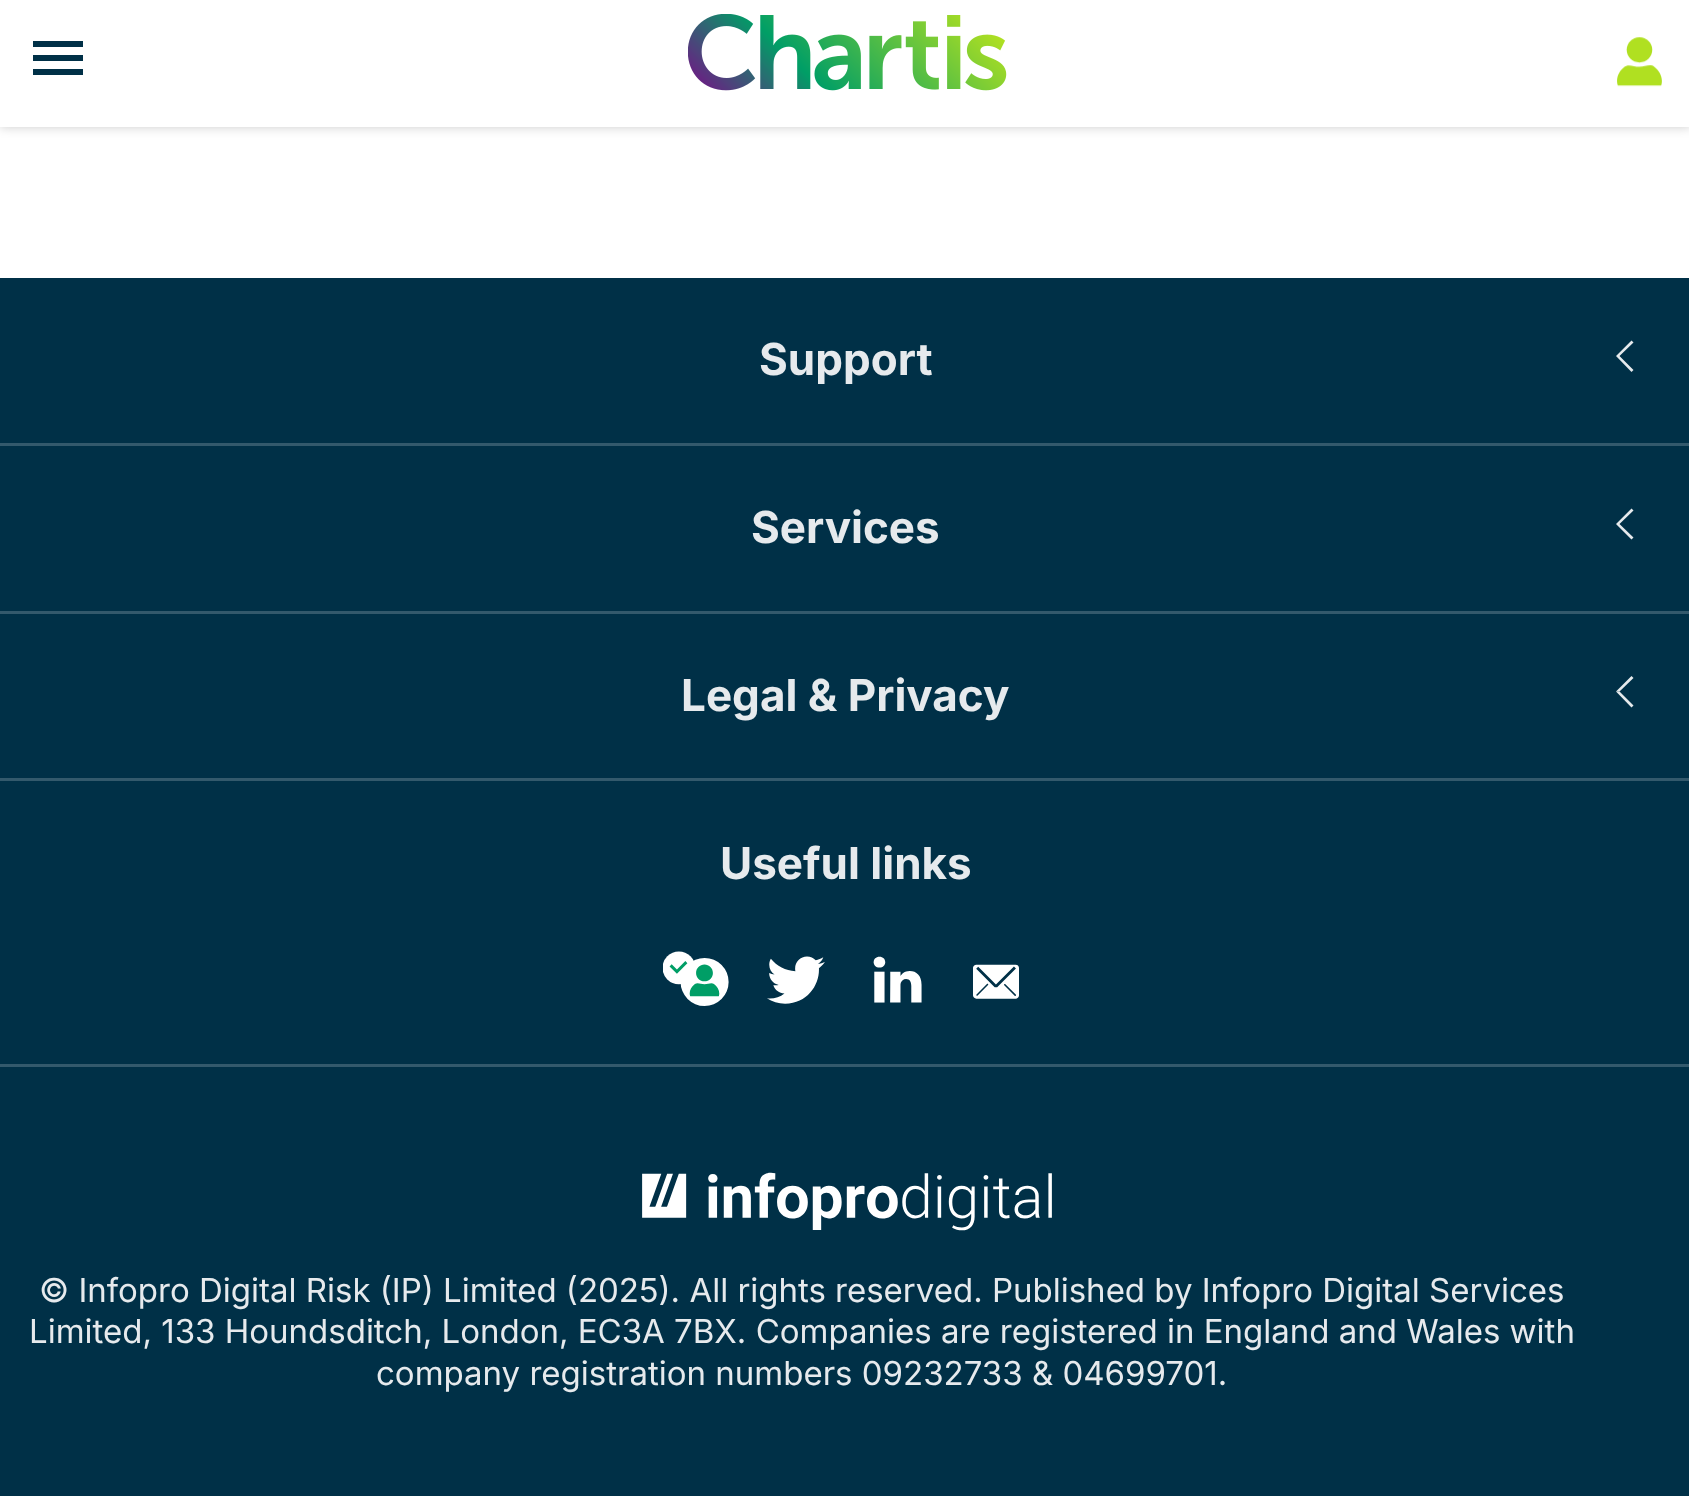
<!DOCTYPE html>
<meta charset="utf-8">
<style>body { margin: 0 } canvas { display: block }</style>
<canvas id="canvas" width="1689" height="1496"></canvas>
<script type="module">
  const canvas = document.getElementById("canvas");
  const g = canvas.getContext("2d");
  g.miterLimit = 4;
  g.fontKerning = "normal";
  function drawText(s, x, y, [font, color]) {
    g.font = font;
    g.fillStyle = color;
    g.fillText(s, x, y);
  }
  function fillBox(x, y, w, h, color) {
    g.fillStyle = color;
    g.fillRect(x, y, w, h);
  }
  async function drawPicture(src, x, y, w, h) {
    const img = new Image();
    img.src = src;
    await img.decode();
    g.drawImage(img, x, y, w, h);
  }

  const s1 = ["bold 44px Inter", "#E6EAED"];
  const s2 = ["33px Inter", "#E6EAED"];

  fillBox(0, 0, 1689, 1496, "#FFFFFF");
  g.fillStyle = "rgba(0, 0, 0, 0.2)";
  g.filter = "blur(5.5px)";
  g.beginPath();
  g.rect(0, 6, 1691, 121);
  g.fill();
  g.filter = "none";
  fillBox(0, 0, 1689, 127, "#FFFFFF");
  fillBox(33, 55, 50, 6, "#003047");
  fillBox(33, 41, 50, 6, "#003047");
  fillBox(33, 69, 50, 6, "#003047");
  await drawPicture("pic1.png", 688, 14, 319, 77);
  await drawPicture("pic2.png", 1617, 37, 45, 50);
  fillBox(0, 278, 1689, 1218, "#003047");
  fillBox(0, 443, 1689, 3, "#33596C");
  drawText("Support", 759, 375, s1);
  g.beginPath();
  g.moveTo(1631.5, 372);
  g.lineTo(1616, 356);
  g.lineTo(1619.5, 356);
  g.lineTo(1633.5, 370);
  g.closePath();
  g.moveTo(1616, 356);
  g.lineTo(1631.5, 340.5);
  g.lineTo(1633.5, 342.5);
  g.lineTo(1619.5, 356);
  g.closePath();
  g.fill();
  fillBox(0, 611, 1689, 3, "#33596C");
  drawText("Services", 751, 543, s1);
  g.beginPath();
  g.moveTo(1631.5, 539.5);
  g.lineTo(1616, 524);
  g.lineTo(1619.5, 524);
  g.lineTo(1633.5, 537.5);
  g.closePath();
  g.moveTo(1616, 524);
  g.lineTo(1631.5, 508.5);
  g.lineTo(1633.5, 510.5);
  g.lineTo(1619.5, 524);
  g.closePath();
  g.fill();
  fillBox(0, 778, 1689, 3, "#33596C");
  drawText("Legal & Privacy", 681, 711, s1);
  g.beginPath();
  g.moveTo(1631.5, 707.5);
  g.lineTo(1616, 691.5);
  g.lineTo(1619.5, 691.5);
  g.lineTo(1633.5, 705.5);
  g.closePath();
  g.fill();
  g.fillStyle = "rgba(255, 255, 255, 0.9)";
  g.beginPath();
  g.moveTo(1616, 691.5);
  g.lineTo(1631.5, 676);
  g.lineTo(1633.5, 678);
  g.lineTo(1619.5, 691.5);
  g.closePath();
  g.fill();
  drawText("Useful links", 720, 879, s1);
  await drawPicture("pic3.png", 663, 951, 66, 55);
  await drawPicture("pic4.png", 767, 956, 58, 48);
  await drawPicture("pic5.png", 873, 956, 49, 47);
  await drawPicture("pic6.png", 973, 964, 46, 35);
  fillBox(0, 1064, 1689, 3, "#33596C");
  await drawPicture("pic7.png", 642, 1172, 410, 59);
  drawText("© Infopro Digital Risk (IP) Limited (2025). All rights reserved. Published by Infopro Digital Services", 39, 1302, s2);
  drawText("Limited, 133 Houndsditch, London, EC3A 7BX. Companies are registered in England and Wales with", 29, 1343, s2);
  drawText("company registration numbers 09232733 & 04699701.", 376, 1385, s2);
</script>
